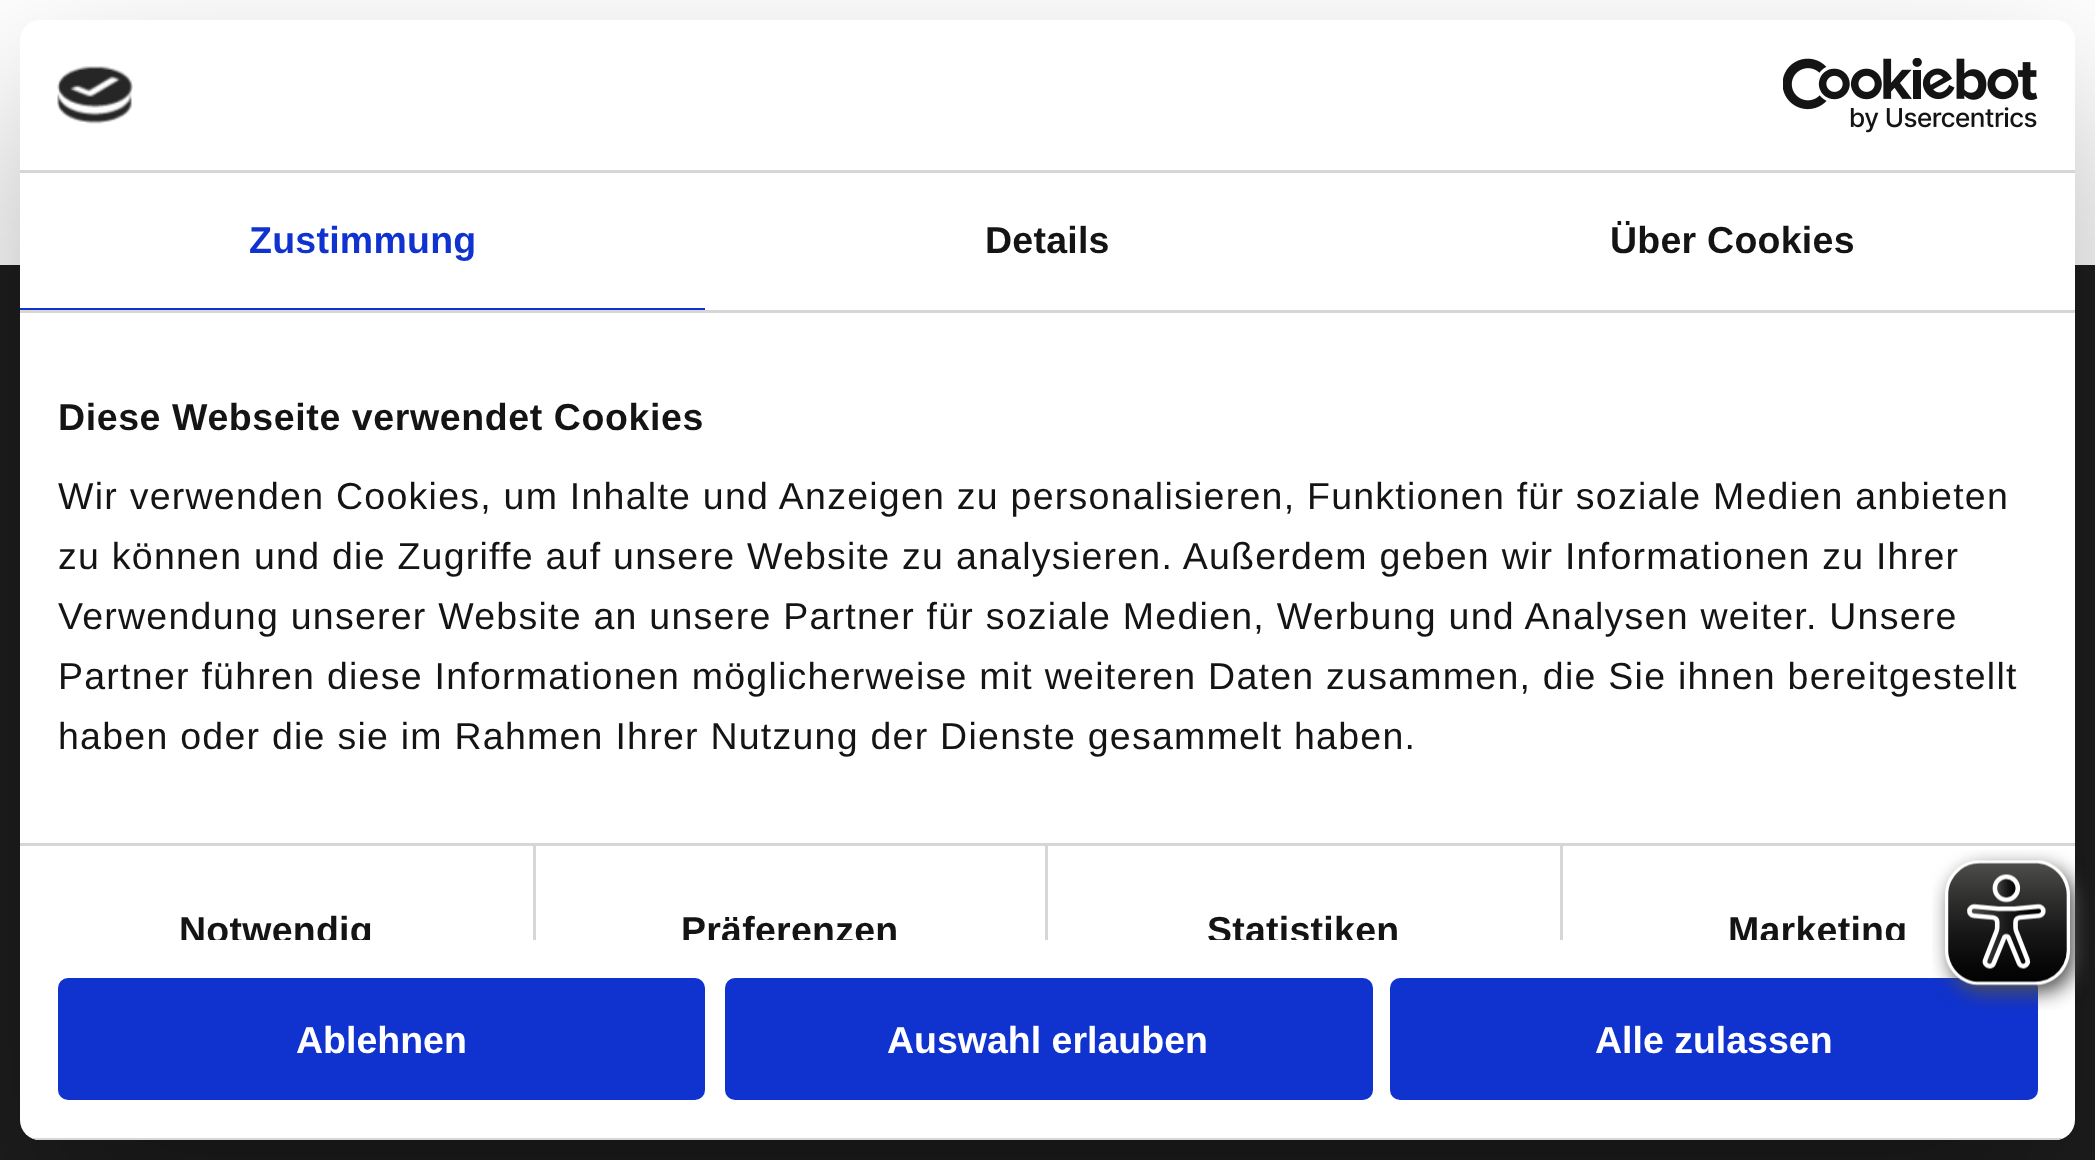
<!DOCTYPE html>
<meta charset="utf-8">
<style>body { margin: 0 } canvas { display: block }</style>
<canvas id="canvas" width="2095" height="1160"></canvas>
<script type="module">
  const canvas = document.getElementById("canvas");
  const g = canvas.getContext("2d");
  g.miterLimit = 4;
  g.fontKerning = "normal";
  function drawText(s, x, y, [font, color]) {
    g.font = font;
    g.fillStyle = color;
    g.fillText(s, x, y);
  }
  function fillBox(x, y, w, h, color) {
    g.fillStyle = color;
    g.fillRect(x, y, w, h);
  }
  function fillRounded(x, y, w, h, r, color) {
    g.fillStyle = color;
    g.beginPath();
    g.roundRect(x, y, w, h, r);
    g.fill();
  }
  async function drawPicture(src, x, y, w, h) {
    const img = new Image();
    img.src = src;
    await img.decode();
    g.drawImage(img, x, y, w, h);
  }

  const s1 = ["bold 37.5px Liberation Sans", "#1032CF"];
  const s2 = ["bold 37.5px Liberation Sans", "#141414"];
  const s3 = ["37.5px Liberation Sans", "#141414"];
  const s4 = ["bold 37.5px Liberation Sans", "#FFFFFF"];

  fillBox(0, 0, 2095, 1160, "#FFFFFF");
  fillBox(0, 265, 2095, 895, "#1E1E1E");
  g.fillStyle = "rgba(0, 0, 0, 0.3)";
  g.filter = "blur(85px)";
  g.beginPath();
  g.roundRect(20, 100, 2055, 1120, 20);
  g.fill();
  g.filter = "none";
  fillRounded(20, 20, 2055, 1120, 20, "#FFFFFF");
  fillBox(20, 170, 2055, 3, "#D6D6D6");
  await drawPicture("pic1.png", 57, 66, 76, 58);
  await drawPicture("pic2.png", 1783, 58, 255, 75);
  fillBox(20, 310, 2055, 3, "#D6D6D6");
  fillBox(20, 308, 685, 2, "#1032CF");
  g.letterSpacing = "0.25px";
  drawText("Zustimmung", 249, 253, s1);
  drawText("Details", 985, 253, s2);
  drawText("Über Cookies", 1610, 253, s2);
  fillBox(533, 845, 3, 95, "#D6D6D6");
  fillBox(1045, 845, 3, 95, "#D6D6D6");
  fillBox(1560, 845, 3, 95, "#D6D6D6");
  fillBox(20, 843, 2055, 3, "#D6D6D6");
  g.letterSpacing = "0.6px";
  drawText("Diese Webseite verwendet Cookies", 58, 430, s2);
  g.letterSpacing = "1.25px";
  drawText("Wir verwenden Cookies, um Inhalte und Anzeigen zu personalisieren, Funktionen für soziale Medien anbieten", 58, 509, s3);
  drawText("zu können und die Zugriffe auf unsere Website zu analysieren. Außerdem geben wir Informationen zu Ihrer", 58, 569, s3);
  drawText("Verwendung unserer Website an unsere Partner für soziale Medien, Werbung und Analysen weiter. Unsere", 58, 629, s3);
  drawText("Partner führen diese Informationen möglicherweise mit weiteren Daten zusammen, die Sie ihnen bereitgestellt", 58, 689, s3);
  drawText("haben oder die sie im Rahmen Ihrer Nutzung der Dienste gesammelt haben.", 58, 749, s3);
  g.save();
  g.beginPath();
  g.rect(20, 313, 2055, 627);
  g.clip();
  g.letterSpacing = "0.25px";
  drawText("Notwendig", 179, 943, s2);
  drawText("Präferenzen", 681, 943, s2);
  drawText("Statistiken", 1207, 943, s2);
  drawText("Marketing", 1728, 943, s2);
  g.restore();
  g.save();
  g.beginPath();
  g.roundRect(20, 20, 2055, 1120, 20);
  g.clip();
  fillBox(31, 1138, 2033, 2, "#D6D6D6");
  g.restore();
  g.fillStyle = "#1032CF";
  g.beginPath();
  g.roundRect(60.5, 980.5, 642, 117, 7.5);
  g.fill();
  g.strokeStyle = "#1032CF";
  g.lineWidth = 5;
  g.stroke();
  g.letterSpacing = "0px";
  drawText("Ablehnen", 296, 1053, s4);
  g.fillStyle = "#1032CF";
  g.beginPath();
  g.roundRect(727.5, 980.5, 643, 117, 7.5);
  g.fill();
  g.stroke();
  drawText("Auswahl erlauben", 887, 1053, s4);
  g.fillStyle = "#1032CF";
  g.beginPath();
  g.roundRect(1392.5, 980.5, 643, 117, 7.5);
  g.fill();
  g.stroke();
  drawText("Alle zulassen", 1595, 1053, s4);
  await drawPicture("pic3.png", 1932, 850, 157, 160);
</script>
